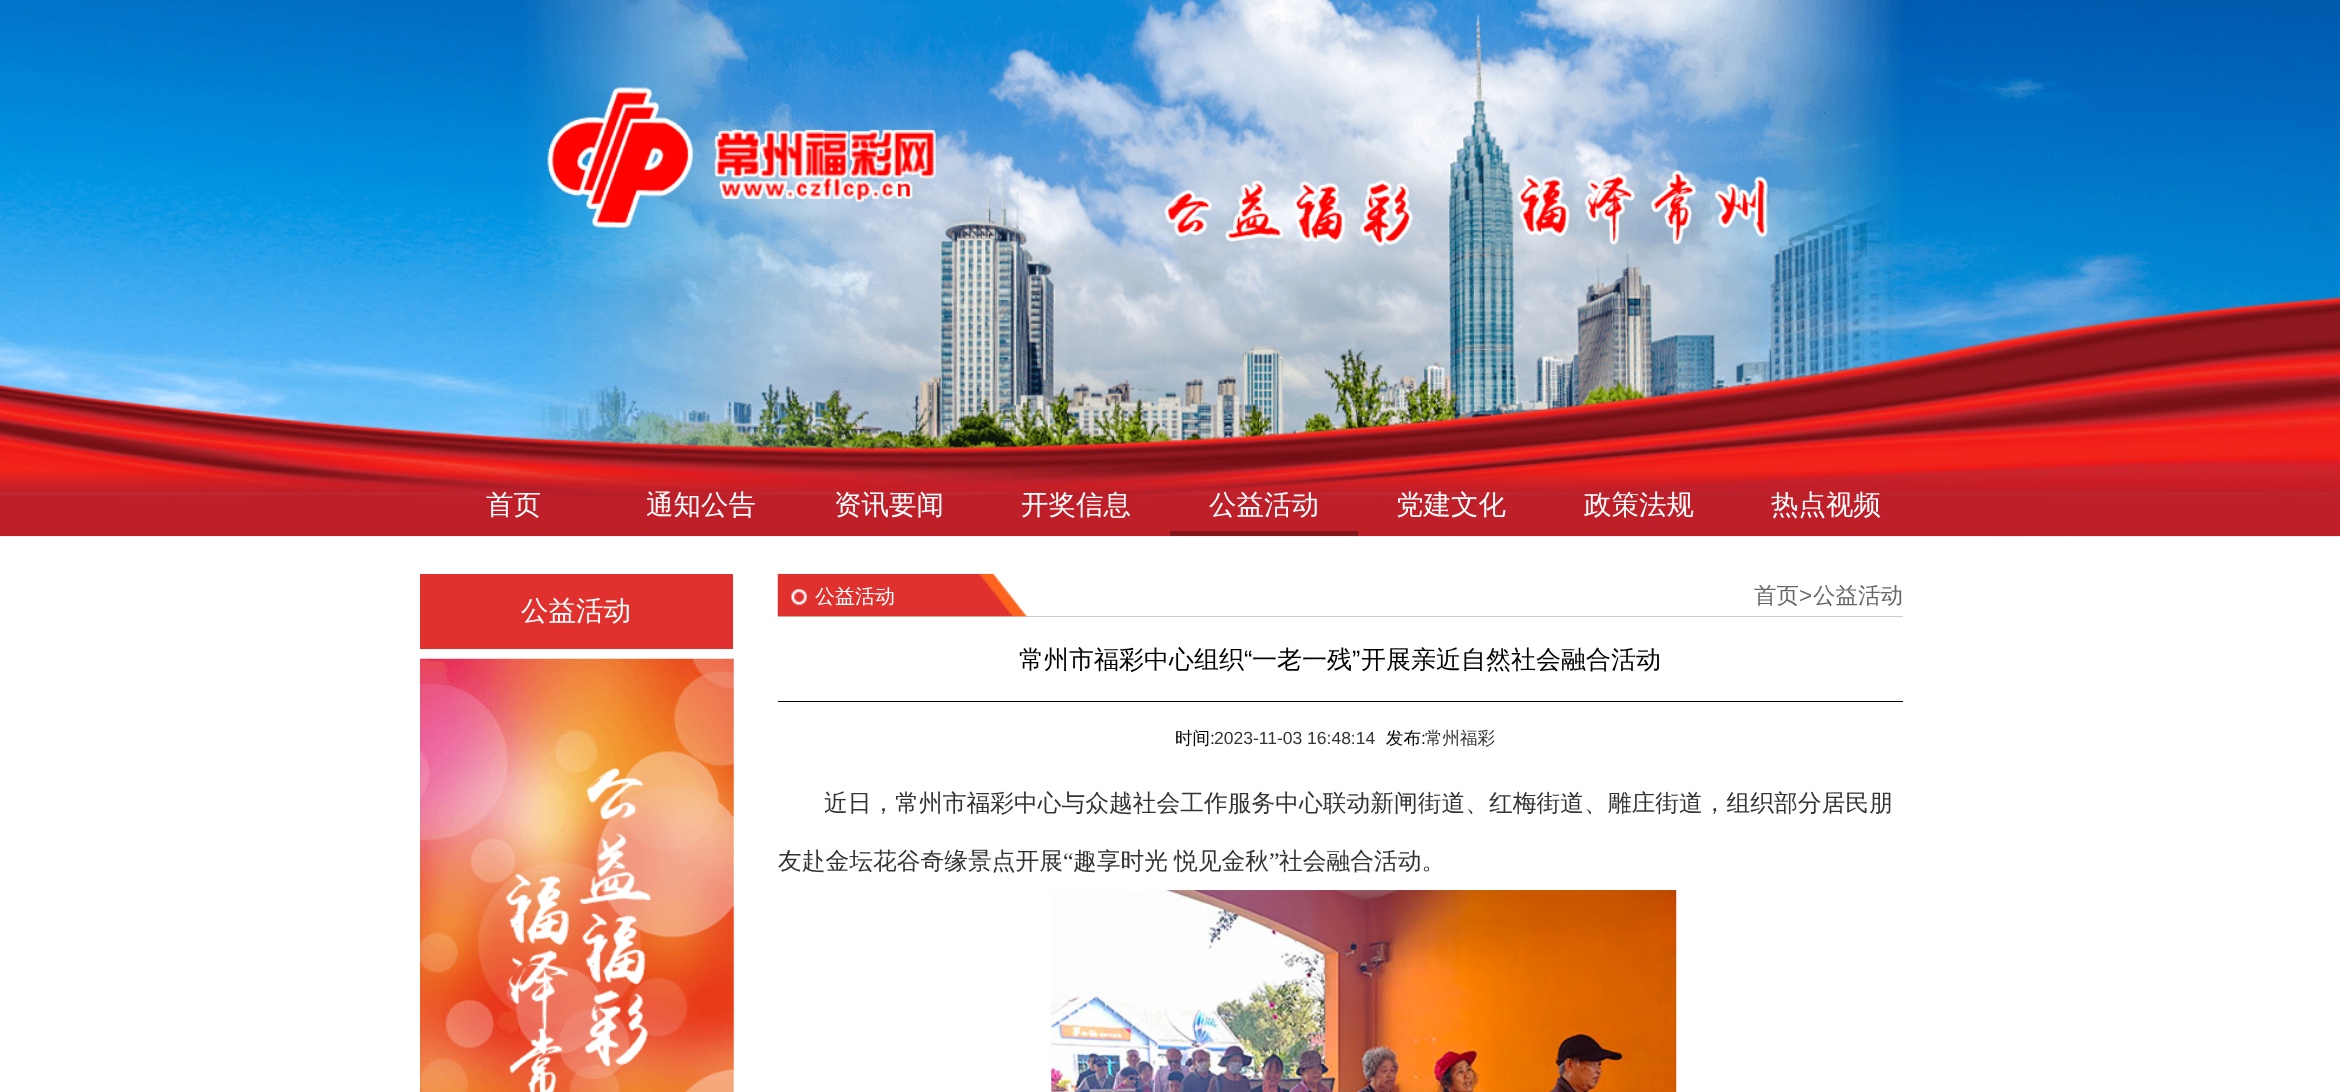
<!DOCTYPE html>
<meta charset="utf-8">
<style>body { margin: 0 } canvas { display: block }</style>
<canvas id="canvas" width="2340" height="1092"></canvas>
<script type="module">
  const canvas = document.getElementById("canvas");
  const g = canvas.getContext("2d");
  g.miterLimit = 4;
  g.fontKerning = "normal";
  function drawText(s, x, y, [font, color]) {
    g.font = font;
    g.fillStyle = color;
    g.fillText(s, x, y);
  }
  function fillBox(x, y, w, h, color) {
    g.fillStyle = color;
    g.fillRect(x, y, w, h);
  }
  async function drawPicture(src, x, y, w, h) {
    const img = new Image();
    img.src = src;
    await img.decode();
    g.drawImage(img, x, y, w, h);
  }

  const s1 = ["500 27.5px WenQuanYi Zen Hei", "#FFFFFF"];
  const s2 = ["500 20px WenQuanYi Zen Hei", "#FFFFFF"];
  const s3 = ["500 22.5px WenQuanYi Zen Hei", "#666666"];
  const s4 = ["22.5px Liberation Sans", "#666666"];
  const s5 = ["500 25px WenQuanYi Zen Hei", "#000000"];
  const s6 = ["25px Liberation Sans", "#000000"];
  const s7 = ["500 17.5px WenQuanYi Zen Hei", "#000000"];
  const s8 = ["17.5px Liberation Sans", "#000000"];
  const s9 = ["17.5px Liberation Sans", "#333333"];
  const s10 = ["500 17.5px WenQuanYi Zen Hei", "#333333"];
  const s11 = ["500 23.75px WenQuanYi Zen Hei", "#333333"];
  const s12 = ["23.75px Liberation Serif", "#333333"];

  fillBox(0, 0, 2340, 1092, "#FFFFFF");
  await drawPicture("pic1.png", 0, 0, 2340, 537);
  await drawPicture("pic2.png", 521, 0, 1382, 449);
  await drawPicture("pic3.png", 0, 297, 2340, 240);
  drawText("首页", 486, 514, s1);
  drawText("通知公告", 646, 514, s1);
  drawText("资讯要闻", 834, 514, s1);
  drawText("开奖信息", 1021, 514, s1);
  drawText("公益活动", 1209, 514, s1);
  fillBox(1170, 531, 188, 5, "#85161D");
  drawText("党建文化", 1396, 514, s1);
  drawText("政策法规", 1584, 514, s1);
  drawText("热点视频", 1771, 514, s1);
  fillBox(420, 574, 313, 75, "#E0312E");
  drawText("公益活动", 521, 620, s1);
  await drawPicture("pic4.png", 420, 658, 314, 434);
  fillBox(778, 616, 1125, 1, "#CCCCCC");
  await drawPicture("pic5.png", 777, 573, 251, 44);
  drawText("公益活动", 815, 603, s2);
  drawText("首页", 1754, 603, s3);
  drawText(">", 1799, 603, s4);
  drawText("公益活动", 1813, 603, s3);
  fillBox(778, 701, 1125, 1, "#000000");
  drawText("常州市福彩中心组织", 1019, 668, s5);
  drawText("“", 1244, 668, s6);
  drawText("一老一残", 1252, 668, s5);
  drawText("”", 1352, 668, s6);
  drawText("开展亲近自然社会融合活动", 1361, 668, s5);
  drawText("时间", 1175, 744, s7);
  drawText(":", 1210, 744, s8);
  drawText("2023-11-03 16:48:14", 1214, 744, s9);
  drawText("发布", 1386, 744, s7);
  drawText(":", 1421, 744, s8);
  drawText("常州福彩", 1425, 744, s10);
  drawText("近日，常州市福彩中心与众越社会工作服务中心联动新闸街道、红梅街道、雕庄街道，组织部分居民朋", 824, 811, s11);
  drawText("友赴金坛花谷奇缘景点开展", 778, 869, s11);
  drawText("“", 1063, 869, s12);
  drawText("趣享时光", 1073, 869, s11);
  drawText("悦见金秋", 1174, 869, s11);
  drawText("”", 1269, 869, s12);
  drawText("社会融合活动。", 1279, 869, s11);
  await drawPicture("pic6.png", 1051, 890, 626, 202);
</script>
